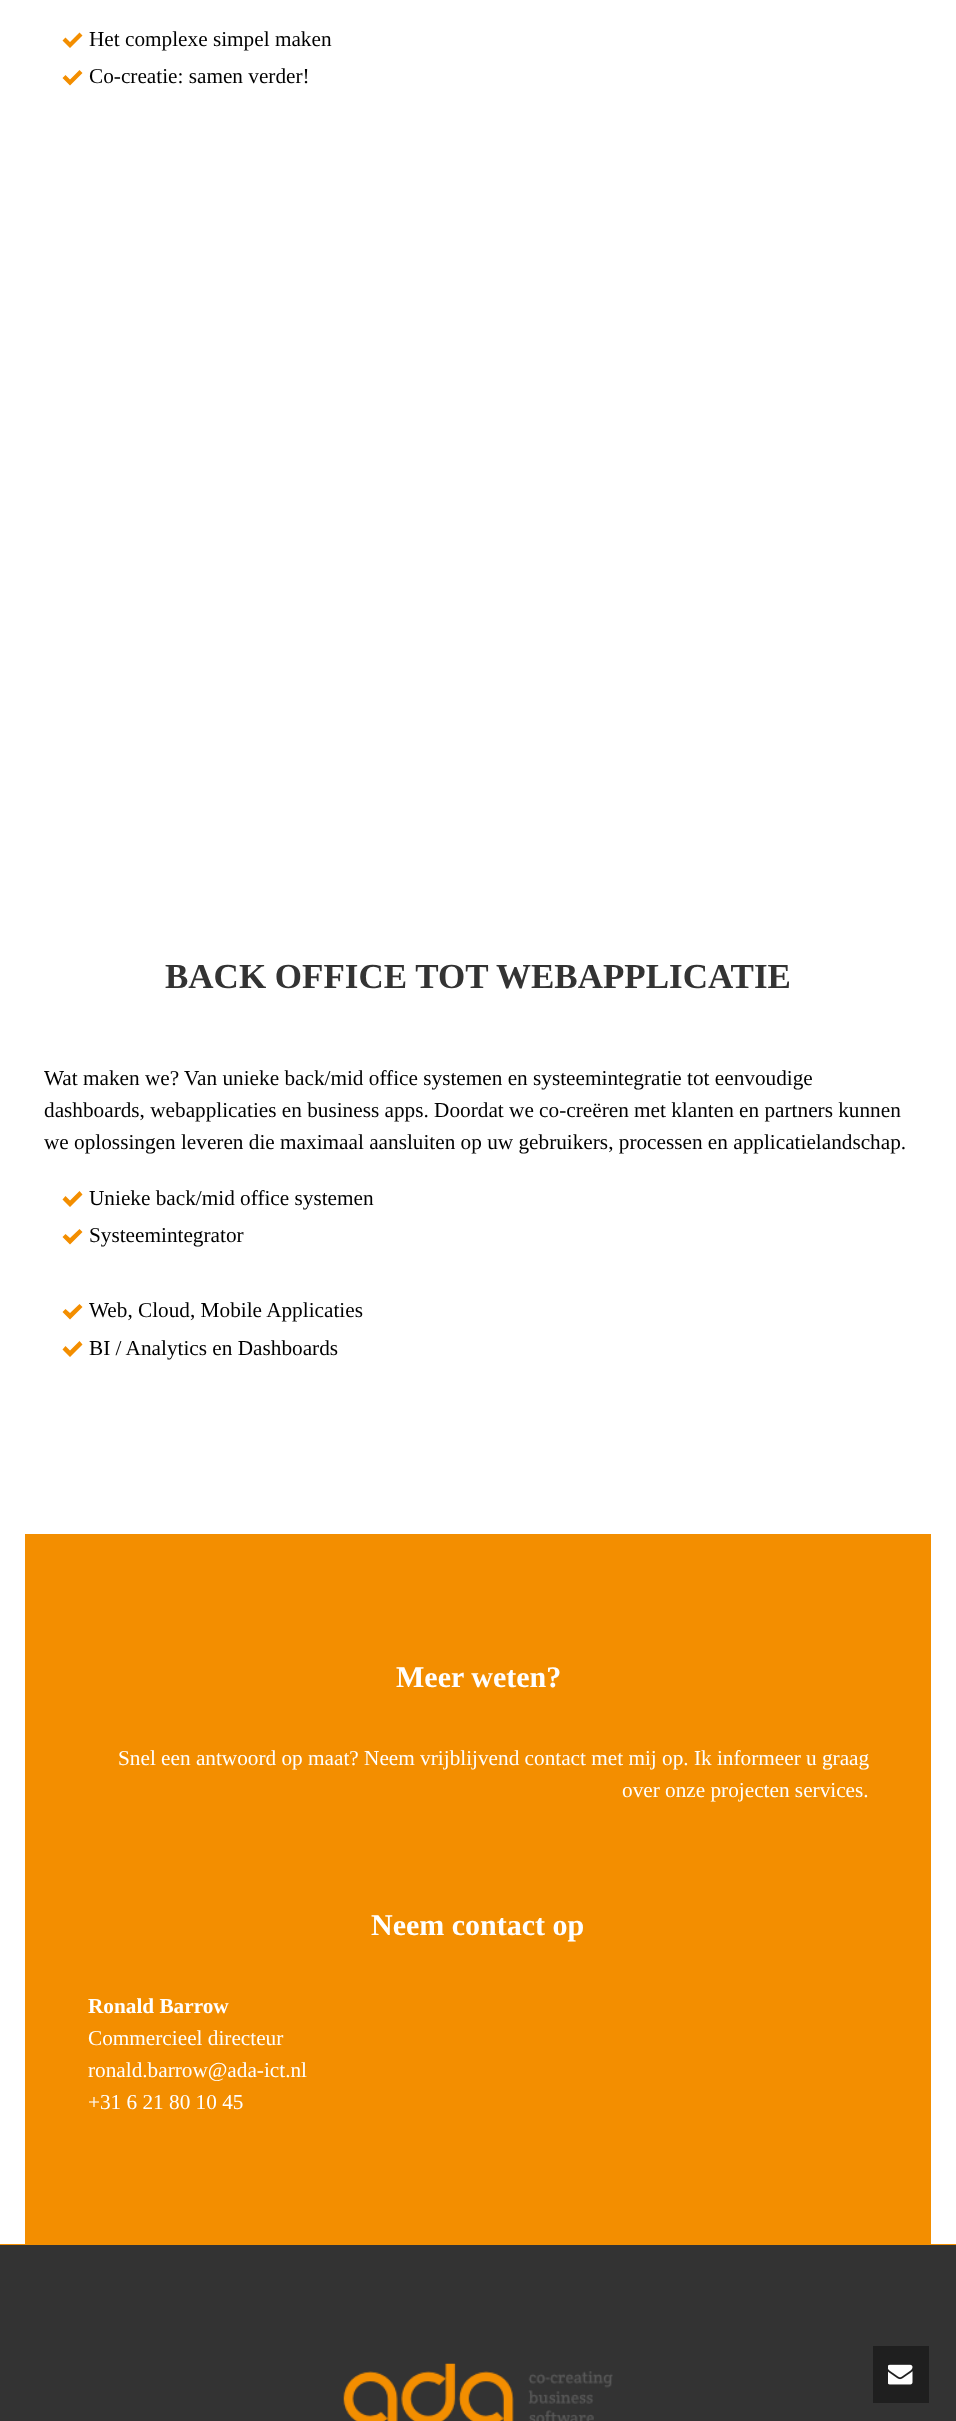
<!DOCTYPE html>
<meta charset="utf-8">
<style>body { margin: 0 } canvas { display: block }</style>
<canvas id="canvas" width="956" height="2421"></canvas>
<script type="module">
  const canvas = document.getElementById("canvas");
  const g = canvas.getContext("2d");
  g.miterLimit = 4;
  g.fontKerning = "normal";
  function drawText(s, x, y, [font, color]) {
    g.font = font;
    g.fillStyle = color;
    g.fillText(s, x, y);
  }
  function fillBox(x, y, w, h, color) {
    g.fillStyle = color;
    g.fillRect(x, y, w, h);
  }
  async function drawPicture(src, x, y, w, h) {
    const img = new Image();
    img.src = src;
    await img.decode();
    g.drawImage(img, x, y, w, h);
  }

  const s1 = ["21.25px Liberation Serif", "#000000"];
  const s2 = ["bold 35px Liberation Serif", "#333333"];
  const s3 = ["bold 30px Liberation Serif", "#FFFFFF"];
  const s4 = ["21.25px Liberation Serif", "#FFFFFF"];
  const s5 = ["bold 21.25px Liberation Serif", "#FFFFFF"];

  fillBox(0, 0, 956, 2421, "#FFFFFF");
  g.fillStyle = "#F38E00";
  g.beginPath();
  g.moveTo(79.5, 32.5);
  g.lineTo(70, 42);
  g.lineTo(65.5, 37.5);
  g.lineTo(62.5, 40.5);
  g.lineTo(70, 48);
  g.lineTo(82.5, 35.5);
  g.closePath();
  g.fill();
  drawText("Het complexe simpel maken", 89, 46, s1);
  g.fillStyle = "#F38E00";
  g.beginPath();
  g.moveTo(79.5, 70);
  g.lineTo(70, 79.5);
  g.lineTo(65.5, 75);
  g.lineTo(62.5, 78);
  g.lineTo(70, 85.5);
  g.lineTo(82.5, 73);
  g.closePath();
  g.fill();
  drawText("Co-creatie: samen verder!", 89, 83, s1);
  drawText("BACK OFFICE TOT WEBAPPLICATIE", 165, 988, s2);
  drawText("Wat maken we? Van unieke back/mid office systemen en systeemintegratie tot eenvoudige", 44, 1085, s1);
  drawText("dashboards, webapplicaties en business apps. Doordat we co-creëren met klanten en partners kunnen", 44, 1117, s1);
  drawText("we oplossingen leveren die maximaal aansluiten op uw gebruikers, processen en applicatielandschap.", 44, 1149, s1);
  g.fillStyle = "#F38E00";
  g.beginPath();
  g.moveTo(79.5, 1191);
  g.lineTo(70, 1200.5);
  g.lineTo(65.5, 1196);
  g.lineTo(62.5, 1199.5);
  g.lineTo(70, 1207);
  g.lineTo(82.5, 1194.5);
  g.closePath();
  g.fill();
  drawText("Unieke back/mid office systemen", 89, 1205, s1);
  g.fillStyle = "#F38E00";
  g.beginPath();
  g.moveTo(79.5, 1229);
  g.lineTo(70, 1238);
  g.lineTo(65.5, 1234);
  g.lineTo(62.5, 1237);
  g.lineTo(70, 1244.5);
  g.lineTo(82.5, 1232);
  g.closePath();
  g.fill();
  drawText("Systeemintegrator", 89, 1242, s1);
  g.fillStyle = "#F38E00";
  g.beginPath();
  g.moveTo(79.5, 1304);
  g.lineTo(70, 1313);
  g.lineTo(65.5, 1309);
  g.lineTo(62.5, 1312);
  g.lineTo(70, 1319.5);
  g.lineTo(82.5, 1307);
  g.closePath();
  g.fill();
  drawText("Web, Cloud, Mobile Applicaties", 89, 1317, s1);
  g.fillStyle = "#F38E00";
  g.beginPath();
  g.moveTo(79.5, 1341);
  g.lineTo(70, 1350.5);
  g.lineTo(65.5, 1346);
  g.lineTo(62.5, 1349.5);
  g.lineTo(70, 1357);
  g.lineTo(82.5, 1344.5);
  g.closePath();
  g.fill();
  drawText("BI / Analytics en Dashboards", 89, 1355, s1);
  fillBox(25, 1534, 906, 710, "#F38E00");
  drawText("Meer weten?", 396, 1687, s3);
  drawText("Snel een antwoord op maat? Neem vrijblijvend contact met mij op. Ik informeer u graag", 118, 1765, s4);
  drawText("over onze projecten services.", 622, 1797, s4);
  drawText("Neem contact op", 371, 1935, s3);
  drawText("Ronald Barrow", 88, 2013, s5);
  drawText("Commercieel directeur", 88, 2045, s4);
  drawText("ronald.barrow@ada-ict.nl", 88, 2077, s4);
  drawText("+31 6 21 80 10 45", 88, 2109, s4);
  fillBox(0, 2245, 956, 176, "#333333");
  fillBox(0, 2244, 956, 1, "#F38E00");
  await drawPicture("pic1.png", 343, 2363, 270, 58);
  fillBox(873, 2346, 56, 57, "#1F1F1F");
  await drawPicture("pic2.png", 888, 2364, 25, 21);
</script>
